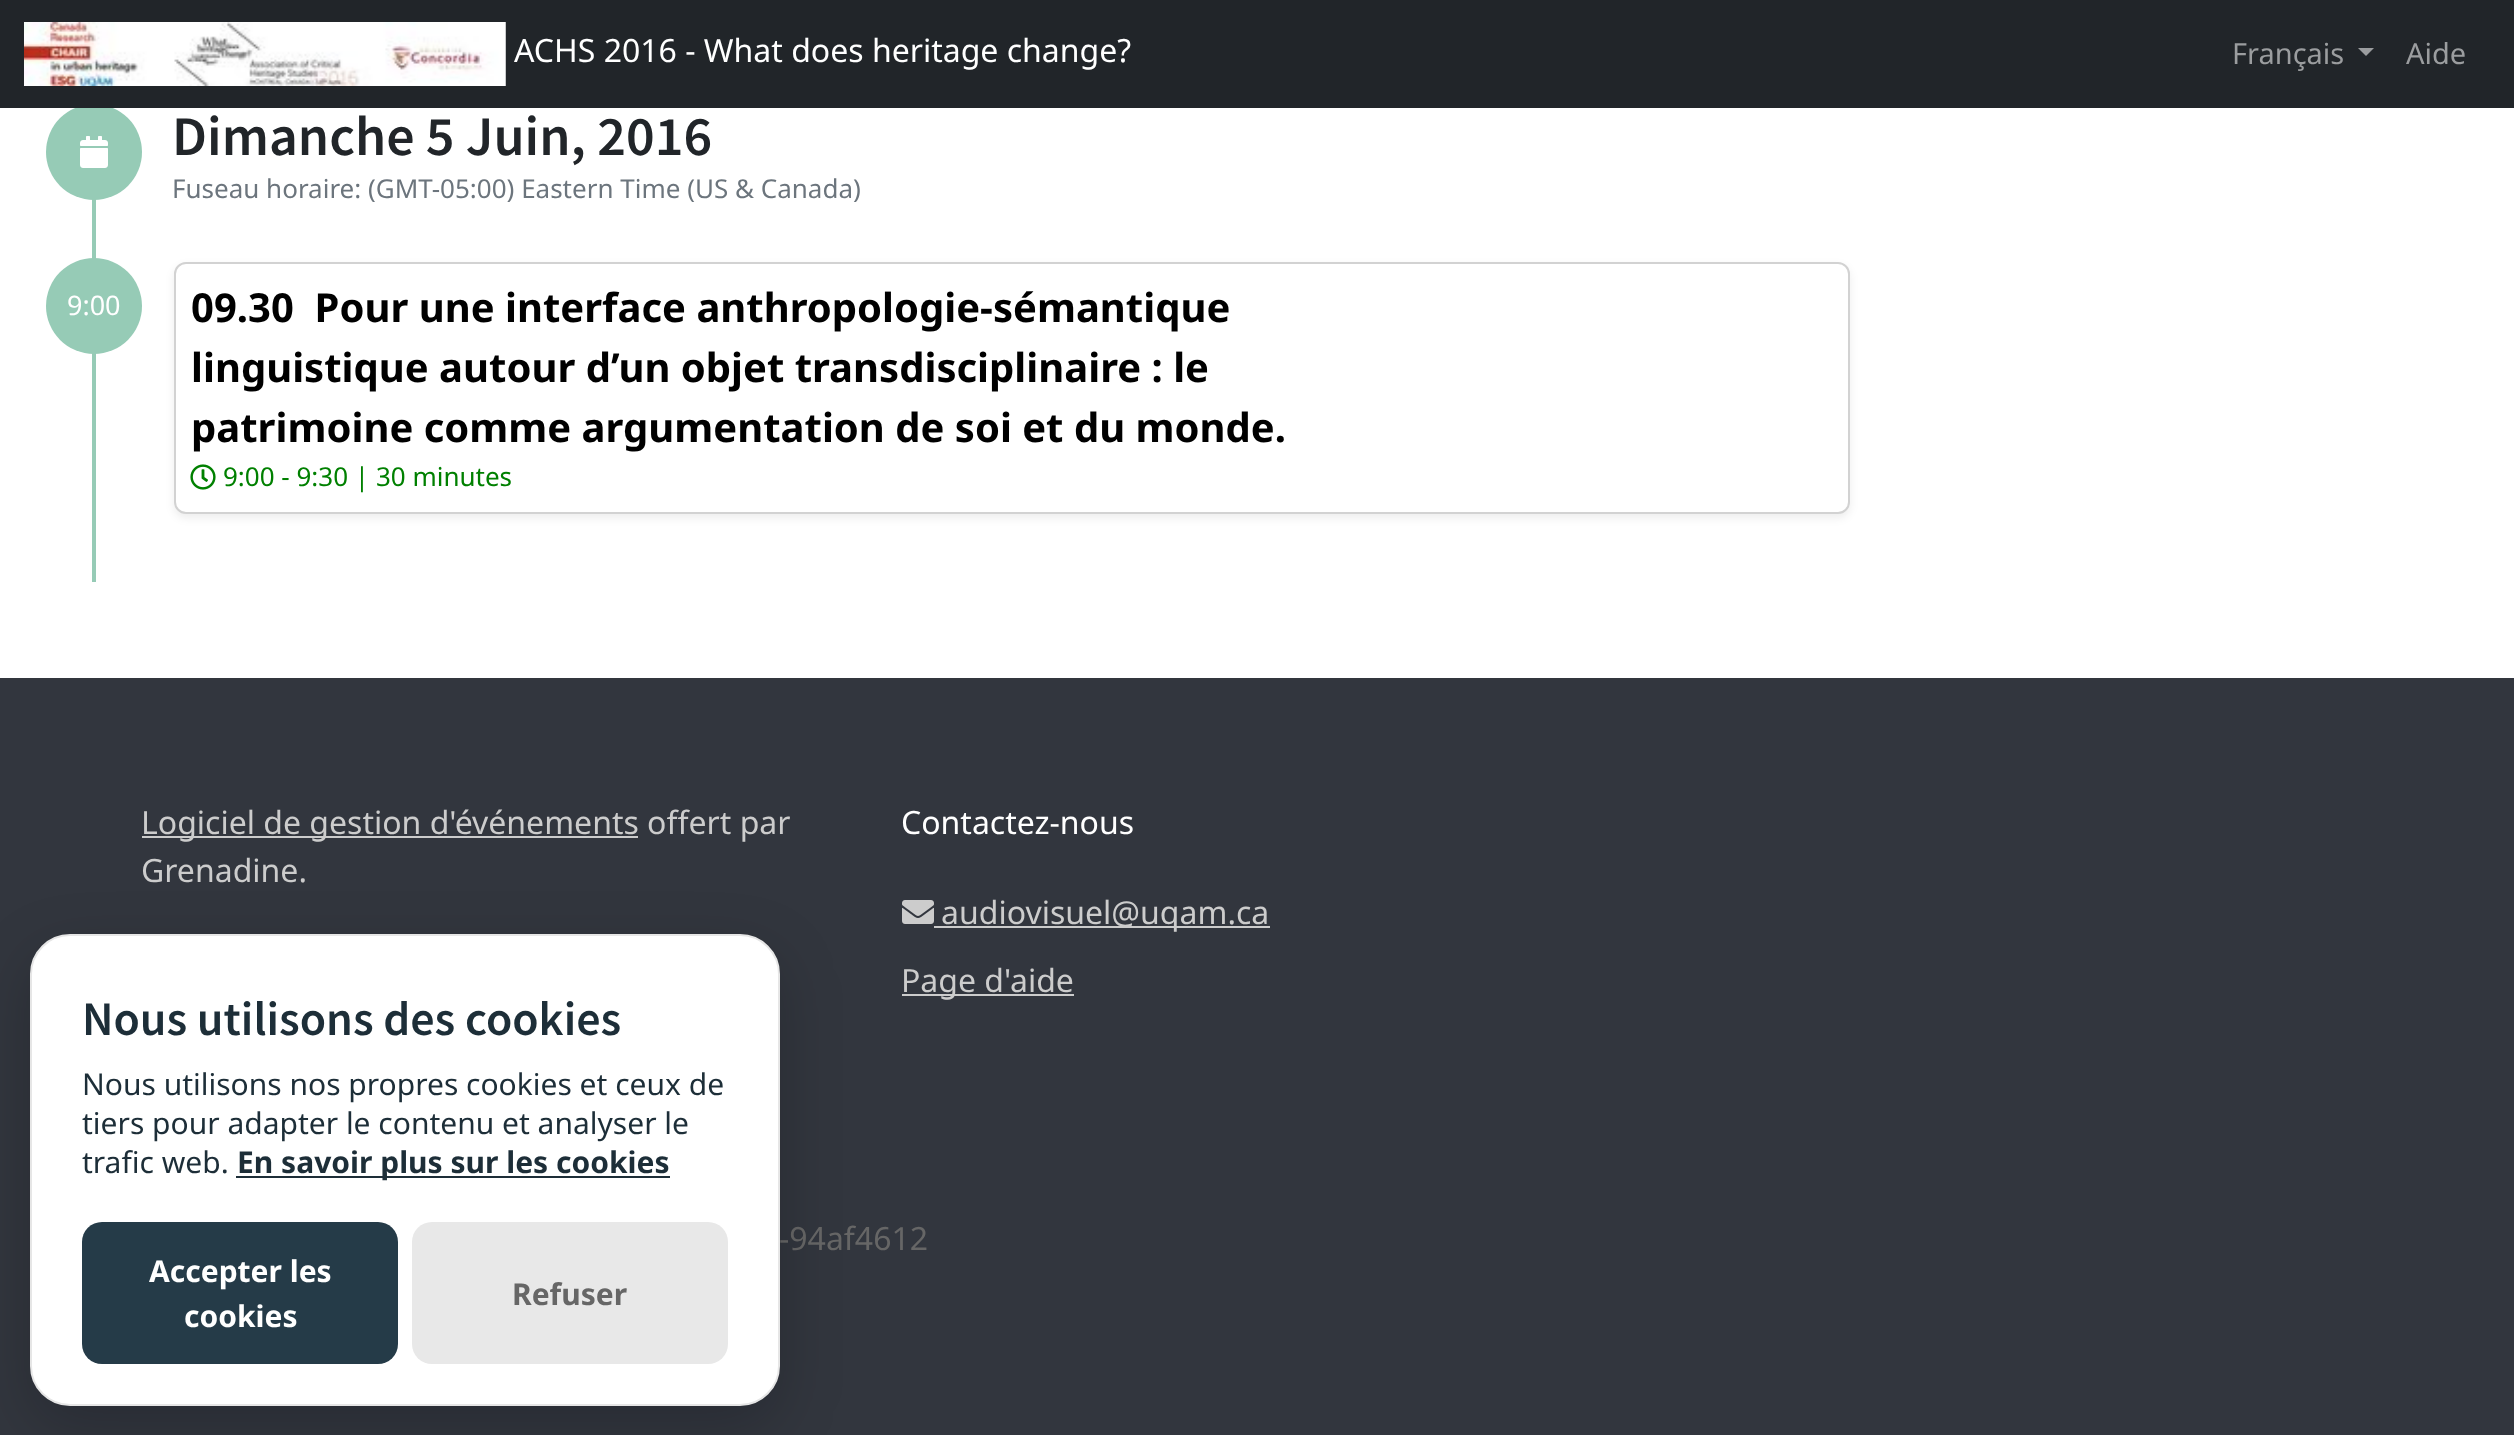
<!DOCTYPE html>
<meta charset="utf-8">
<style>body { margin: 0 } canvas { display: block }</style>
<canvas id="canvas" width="2514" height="1435"></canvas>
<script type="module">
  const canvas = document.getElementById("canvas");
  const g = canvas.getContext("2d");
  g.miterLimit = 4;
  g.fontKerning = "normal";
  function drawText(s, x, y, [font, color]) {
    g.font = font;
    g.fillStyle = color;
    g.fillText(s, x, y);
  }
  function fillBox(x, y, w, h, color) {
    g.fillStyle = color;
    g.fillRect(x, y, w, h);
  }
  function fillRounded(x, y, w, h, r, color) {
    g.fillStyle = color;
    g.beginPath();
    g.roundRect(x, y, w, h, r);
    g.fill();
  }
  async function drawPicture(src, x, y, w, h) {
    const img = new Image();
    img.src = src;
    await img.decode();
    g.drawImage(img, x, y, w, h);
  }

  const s1 = ["32px Noto Sans", "#FFFFFF"];
  const s2 = ["29px Noto Sans", "#9B9D9F"];
  const s3 = ["600 56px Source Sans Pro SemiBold", "#212529"];
  const s4 = ["26px Noto Sans", "#6C757D"];
  const s5 = ["27px Noto Sans", "#FFFFFF"];
  const s6 = ["bold 40px Noto Sans", "#000000"];
  const s7 = ["26px Noto Sans", "#008000"];
  const s8 = ["32px Noto Sans", "#CCCCCC"];
  const s9 = ["32px Noto Sans", "#666666"];
  const s10 = ["600 48px Source Sans Pro SemiBold", "#1D2E38"];
  const s11 = ["30px Noto Sans", "#1D2E38"];
  const s12 = ["bold 30px Noto Sans", "#1D2E38"];
  const s13 = ["bold 30px Noto Sans", "#FFFFFF"];
  const s14 = ["bold 30px Noto Sans", "#666666"];

  fillBox(0, 0, 2514, 1435, "#FFFFFF");
  fillBox(92, 199, 4, 383, "#96CBB6");
  g.beginPath();
  g.arc(94, 152, 48, 0, Math.PI * 2);
  g.fill();
  fillBox(0, 0, 2514, 108, "#212529");
  await drawPicture("pic1.png", 24, 22, 482, 64);
  drawText("ACHS 2016 - What does heritage change?", 514, 62, s1);
  drawText("Français", 2232, 64, s2);
  g.beginPath();
  g.moveTo(2358, 48);
  g.lineTo(2374, 48);
  g.lineTo(2366, 56);
  g.closePath();
  g.fill();
  drawText("Aide", 2406, 64, s2);
  await drawPicture("pic2.png", 80, 136, 28, 32);
  drawText("Dimanche 5 Juin, 2016", 172, 155, s3);
  drawText("Fuseau horaire: (GMT-05:00) Eastern Time (US & Canada)", 172, 198, s4);
  g.fillStyle = "#96CBB6";
  g.beginPath();
  g.arc(94, 306, 48, 0, Math.PI * 2);
  g.fill();
  drawText("9:00", 67, 315, s5);
  g.fillStyle = "rgba(0, 0, 0, 0.07)";
  g.filter = "blur(4px)";
  g.beginPath();
  g.roundRect(174, 266, 1676, 252, 12);
  g.fill();
  g.filter = "none";
  g.fillStyle = "#FFFFFF";
  g.beginPath();
  g.roundRect(175, 263, 1674, 250, 11);
  g.fill();
  g.strokeStyle = "#D2D2D2";
  g.lineWidth = 2;
  g.stroke();
  drawText("09.30  Pour une interface anthropologie-sémantique", 191, 322, s6);
  drawText("linguistique autour d’un objet transdisciplinaire : le", 191, 382, s6);
  drawText("patrimoine comme argumentation de soi et du monde.", 191, 442, s6);
  await drawPicture("pic3.png", 190, 464, 26, 26);
  drawText("9:00 - 9:30 | 30 minutes", 223, 486, s7);
  fillBox(0, 678, 2514, 757, "#32363E");
  fillBox(142, 836, 496, 2, "#CCCCCC");
  drawText("Logiciel de gestion d'événements offert par", 141, 834, s8);
  drawText("Grenadine.", 141, 882, s8);
  drawText("Contactez-nous", 901, 834, s1);
  await drawPicture("pic4.png", 902, 900, 32, 24);
  fillBox(934, 926, 336, 2, "#CCCCCC");
  drawText("audiovisuel@uqam.ca", 941, 924, s8);
  fillBox(902, 994, 172, 2, "#CCCCCC");
  drawText("Page d'aide", 901, 992, s8);
  drawText("-94af4612", 779, 1250, s9);
  g.fillStyle = "rgba(2, 2, 3, 0.2)";
  g.filter = "blur(30px)";
  g.beginPath();
  g.roundRect(30, 954, 750, 472, 40);
  g.fill();
  g.filter = "none";
  g.fillStyle = "#FFFFFF";
  g.beginPath();
  g.roundRect(31, 935, 748, 470, 39);
  g.fill();
  g.strokeStyle = "#E6E6E6";
  g.stroke();
  drawText("Nous utilisons des cookies", 82, 1035, s10);
  drawText("Nous utilisons nos propres cookies et ceux de", 82, 1095, s11);
  drawText("tiers pour adapter le contenu et analyser le", 82, 1134, s11);
  drawText("trafic web.", 82, 1173, s11);
  fillBox(236, 1176, 434, 2, "#1D2E38");
  drawText("En savoir plus sur les cookies", 237, 1173, s12);
  fillRounded(82, 1222, 316, 142, 20, "#253B48");
  drawText("Accepter les", 149, 1282, s13);
  drawText("cookies", 184, 1327, s13);
  fillRounded(412, 1222, 316, 142, 20, "#E8E8E8");
  drawText("Refuser", 512, 1305, s14);
</script>
